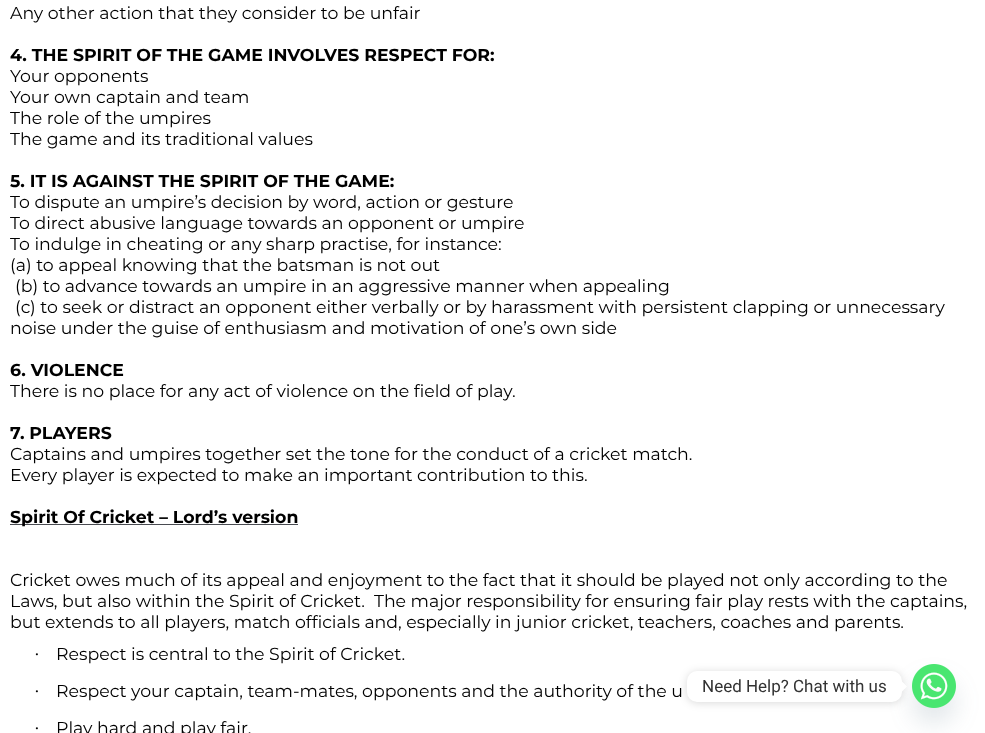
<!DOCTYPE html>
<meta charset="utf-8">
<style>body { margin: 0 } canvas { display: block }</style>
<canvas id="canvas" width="985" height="733"></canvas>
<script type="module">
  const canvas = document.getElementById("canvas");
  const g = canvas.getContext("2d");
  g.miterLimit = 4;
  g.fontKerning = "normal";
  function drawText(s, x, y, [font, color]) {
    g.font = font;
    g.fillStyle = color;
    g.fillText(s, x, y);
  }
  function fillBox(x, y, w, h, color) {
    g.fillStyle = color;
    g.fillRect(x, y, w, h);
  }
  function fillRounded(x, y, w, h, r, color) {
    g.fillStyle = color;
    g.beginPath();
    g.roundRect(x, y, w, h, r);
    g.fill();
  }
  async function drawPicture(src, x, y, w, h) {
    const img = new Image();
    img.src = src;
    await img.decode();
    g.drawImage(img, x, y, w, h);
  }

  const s1 = ["17.33px Montserrat", "#000000"];
  const s2 = ["bold 17.33px Montserrat", "#000000"];
  const s3 = ["17.33px Liberation Serif", "#000000"];
  const s4 = ["17px Roboto", "#333333"];

  fillBox(0, 0, 985, 733, "#FFFFFF");
  drawText("Any other action that they consider to be unfair", 10, 19, s1);
  drawText("4. THE SPIRIT OF THE GAME INVOLVES RESPECT FOR:", 10, 61, s2);
  drawText("Your opponents", 10, 82, s1);
  drawText("Your own captain and team", 10, 103, s1);
  drawText("The role of the umpires", 10, 124, s1);
  drawText("The game and its traditional values", 10, 145, s1);
  drawText("5. IT IS AGAINST THE SPIRIT OF THE GAME:", 10, 187, s2);
  drawText("To dispute an umpire’s decision by word, action or gesture", 10, 208, s1);
  drawText("To direct abusive language towards an opponent or umpire", 10, 229, s1);
  drawText("To indulge in cheating or any sharp practise, for instance:", 10, 250, s1);
  drawText("(a) to appeal knowing that the batsman is not out", 10, 271, s1);
  drawText("(b) to advance towards an umpire in an aggressive manner when appealing", 15, 292, s1);
  drawText("(c) to seek or distract an opponent either verbally or by harassment with persistent clapping or unnecessary", 15, 313, s1);
  drawText("noise under the guise of enthusiasm and motivation of one’s own side", 10, 334, s1);
  drawText("6. VIOLENCE", 10, 376, s2);
  drawText("There is no place for any act of violence on the field of play.", 10, 397, s1);
  drawText("7. PLAYERS", 10, 439, s2);
  drawText("Captains and umpires together set the tone for the conduct of a cricket match.", 10, 460, s1);
  drawText("Every player is expected to make an important contribution to this.", 10, 481, s1);
  fillBox(10, 524, 288, 1, "#494B51");
  drawText("Spirit Of Cricket – Lord’s version", 10, 523, s2);
  drawText("Cricket owes much of its appeal and enjoyment to the fact that it should be played not only according to the", 10, 586, s1);
  drawText("Laws, but also within the Spirit of Cricket.  The major responsibility for ensuring fair play rests with the captains,", 10, 607, s1);
  drawText("but extends to all players, match officials and, especially in junior cricket, teachers, coaches and parents.", 10, 628, s1);
  drawText("·", 34, 660, s3);
  drawText("Respect is central to the Spirit of Cricket.", 56, 660, s1);
  drawText("·", 34, 697, s3);
  drawText("Respect your captain, team-mates, opponents and the authority of the u", 56, 697, s1);
  drawText("·", 34, 734, s3);
  drawText("Play hard and play fair.", 56, 734, s1);
  g.fillStyle = "rgba(73, 104, 126, 0.16)";
  g.filter = "blur(12px)";
  g.beginPath();
  g.roundRect(912, 680, 44, 44, 22);
  g.fill();
  g.filter = "none";
  await drawPicture("pic1.png", 912, 664, 44, 44);
  g.fillStyle = "rgba(0, 0, 0, 0.15)";
  g.filter = "blur(4px)";
  g.beginPath();
  g.roundRect(687, 672, 215, 31, 10);
  g.fill();
  g.filter = "none";
  fillRounded(687, 671, 215, 31, 10, "#FFFFFF");
  drawText("Need Help? Chat with us", 702, 692, s4);
  g.fillStyle = "#FFFFFF";
  g.beginPath();
  g.moveTo(902, 691.5);
  g.lineTo(902, 681.5);
  g.lineTo(907, 686.5);
  g.closePath();
  g.fill();
</script>
